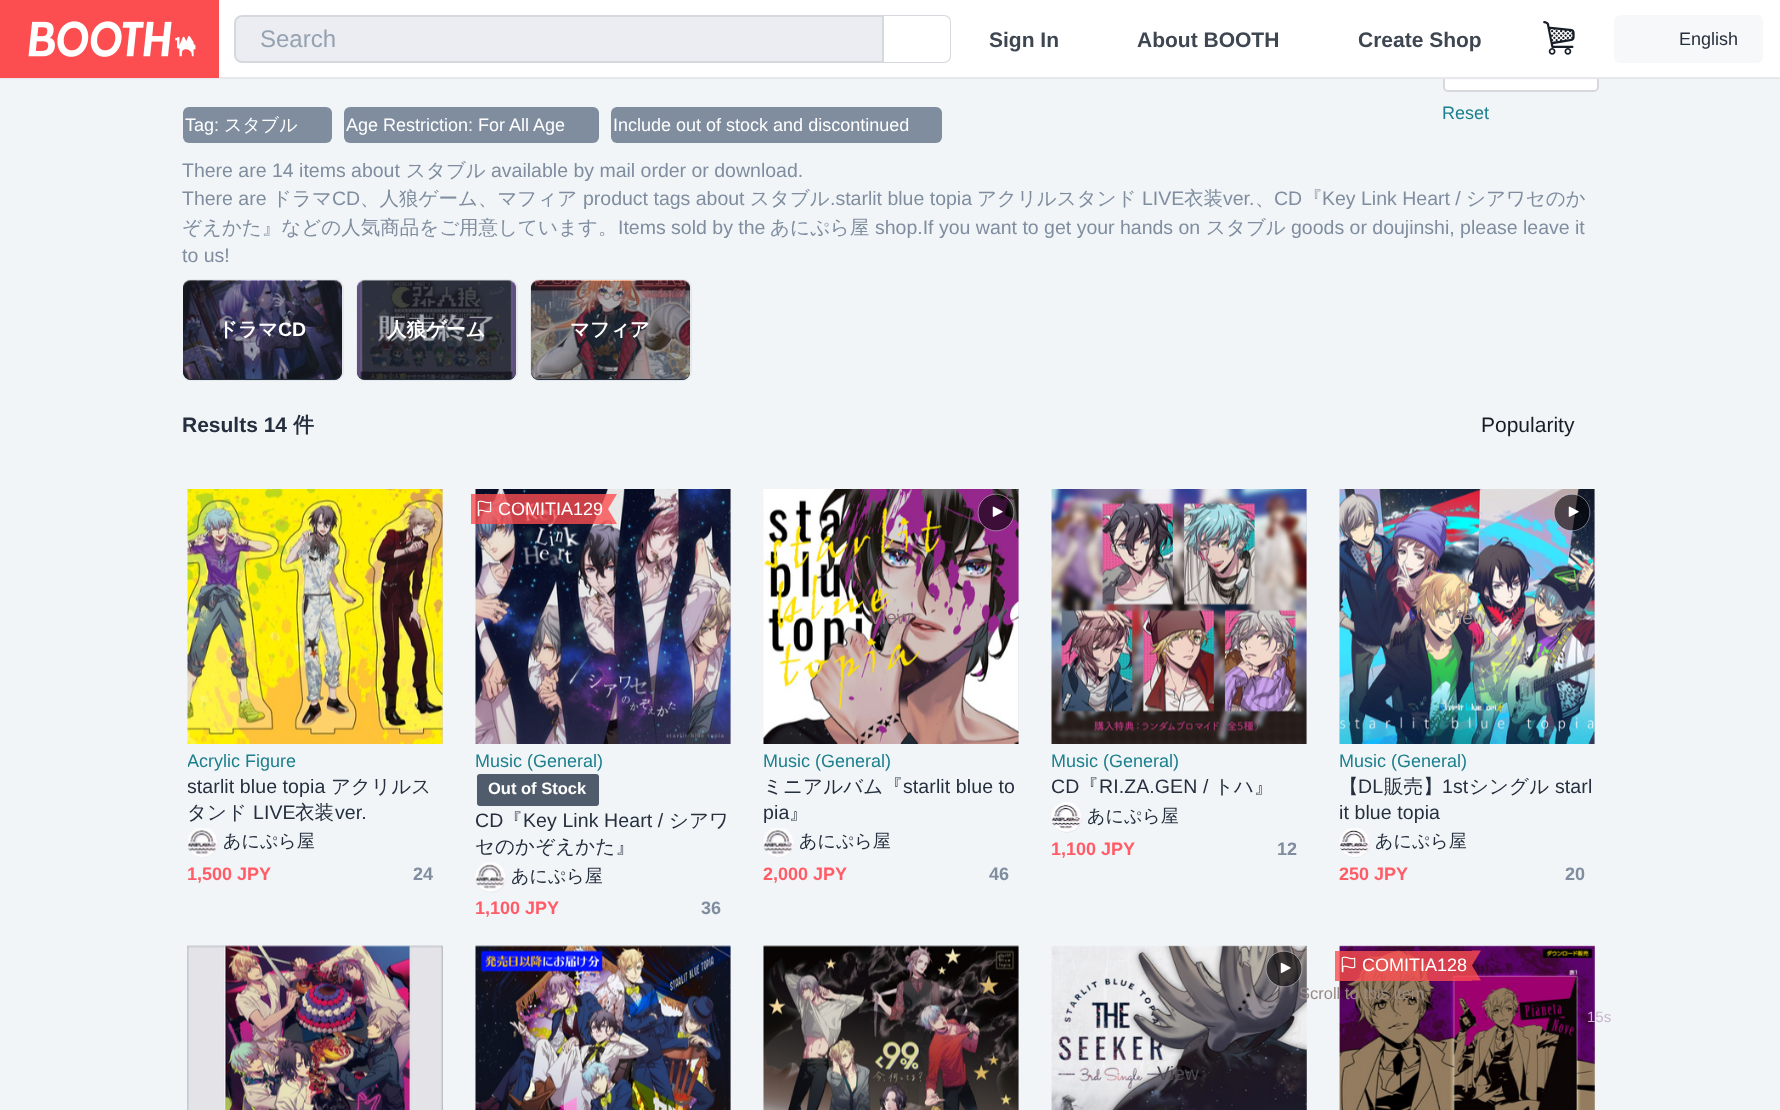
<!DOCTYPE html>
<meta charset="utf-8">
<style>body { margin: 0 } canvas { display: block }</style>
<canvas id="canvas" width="1780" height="1110"></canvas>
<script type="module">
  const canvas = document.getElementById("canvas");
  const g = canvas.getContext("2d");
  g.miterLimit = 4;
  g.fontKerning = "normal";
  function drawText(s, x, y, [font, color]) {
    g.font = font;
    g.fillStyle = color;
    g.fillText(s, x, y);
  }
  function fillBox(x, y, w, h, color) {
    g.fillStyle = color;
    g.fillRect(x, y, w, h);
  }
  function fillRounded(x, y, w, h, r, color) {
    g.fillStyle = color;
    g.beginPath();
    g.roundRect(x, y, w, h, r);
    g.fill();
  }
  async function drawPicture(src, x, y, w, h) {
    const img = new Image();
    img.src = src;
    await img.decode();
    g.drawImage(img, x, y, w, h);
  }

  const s1 = ["24px Liberation Sans", "#96A2B0"];
  const s2 = ["bold 21px Liberation Sans", "#3D4651"];
  const s3 = ["18px Liberation Sans", "#252F3D"];
  const s4 = ["18px Liberation Sans", "#1B7F8C"];
  const s5 = ["18px Liberation Sans", "#FFFFFF"];
  const s6 = ["500 18px WenQuanYi Zen Hei", "#FFFFFF"];
  const s7 = ["19.5px Liberation Sans", "#7F8D9F"];
  const s8 = ["500 19.5px WenQuanYi Zen Hei", "#7F8D9F"];
  const s9 = ["bold 19.5px WenQuanYi Zen Hei", "#FFFFFF"];
  const s10 = ["bold 19.5px Liberation Sans", "#FFFFFF"];
  const s11 = ["bold 21px Liberation Sans", "#252F3D"];
  const s12 = ["bold 21px WenQuanYi Zen Hei", "#252F3D"];
  const s13 = ["21px Liberation Sans", "#171D26"];
  const s14 = ["19.5px Liberation Sans", "#252F3D"];
  const s15 = ["500 19.5px WenQuanYi Zen Hei", "#252F3D"];
  const s16 = ["500 18px WenQuanYi Zen Hei", "#252F3D"];
  const s17 = ["bold 18px Liberation Sans", "#FF5C67"];
  const s18 = ["bold 18px Liberation Sans", "#7F8D9F"];
  const s19 = ["bold 16.5px Liberation Sans", "#FFFFFF"];
  const s20 = ["19.5px Liberation Sans", "#947282"];
  const s21 = ["19.5px Liberation Sans", "#998C8B"];
  const s22 = ["19.5px Liberation Sans", "#4B484F"];
  const s23 = ["16.5px Liberation Sans", "#998A84"];
  const s24 = ["15px Liberation Sans", "#C8B6CF"];

  fillBox(0, 0, 1780, 1110, "#F1F5F8");
  g.fillStyle = "#FFFFFF";
  g.beginPath();
  g.roundRect(1444, 45, 154, 46, 4);
  g.fill();
  g.strokeStyle = "#D5D9DE";
  g.lineWidth = 2;
  g.stroke();
  g.fillStyle = "#E6E8EB";
  g.filter = "blur(1.5px)";
  g.beginPath();
  g.rect(0, 0, 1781, 78);
  g.fill();
  g.filter = "none";
  fillBox(219, 0, 1561, 77, "#FFFFFF");
  fillBox(0, 77, 1780, 2, "#E6E8EB");
  await drawPicture("pic1.png", 0, 0, 219, 78);
  g.fillStyle = "#EBEDF2";
  g.beginPath();
  g.roundRect(235, 16, 648, 46, [7, 0, 0, 7]);
  g.fill();
  g.stroke();
  drawText("Search", 260, 47, s1);
  g.fillStyle = "#D5D9DE";
  g.beginPath();
  g.moveTo(884, 15);
  g.lineTo(944, 15);
  g.bezierCurveTo(948, 15, 951, 18, 951, 22);
  g.lineTo(951, 56);
  g.bezierCurveTo(951, 60, 948, 63, 944, 63);
  g.lineTo(884, 63);
  g.closePath();
  g.moveTo(884, 16);
  g.lineTo(944, 16);
  g.bezierCurveTo(947, 16, 950, 19, 950, 22);
  g.lineTo(950, 56);
  g.bezierCurveTo(950, 59, 947, 62, 944, 62);
  g.lineTo(884, 62);
  g.closePath();
  g.fill("evenodd");
  drawText("Sign In", 989, 47, s2);
  drawText("About BOOTH", 1137, 47, s2);
  drawText("Create Shop", 1358, 47, s2);
  await drawPicture("pic2.png", 1543, 21, 32, 34);
  fillRounded(1614, 15, 149, 48, 6, "#F7F8FA");
  drawText("English", 1679, 45, s3);
  drawText("Reset", 1442, 119, s4);
  fillRounded(183, 107, 149, 36, 6, "#7F8D9F");
  drawText("Tag:", 185, 131, s5);
  drawText("スタブル", 224, 131, s6);
  fillRounded(344, 107, 255, 36, 6, "#7F8D9F");
  drawText("Age Restriction: For All Age", 346, 131, s5);
  fillRounded(611, 107, 331, 36, 6, "#7F8D9F");
  drawText("Include out of stock and discontinued", 613, 131, s5);
  drawText("There are 14 items about", 182, 177, s7);
  drawText("スタブル", 406, 177, s8);
  drawText("available by mail order or download.", 491, 177, s7);
  drawText("There are", 182, 205, s7);
  drawText("ドラマ", 272, 205, s8);
  drawText("CD", 332, 205, s7);
  drawText("、人狼ゲーム、マフィア", 360, 205, s8);
  drawText("product tags about", 583, 205, s7);
  drawText("スタブル", 750, 205, s8);
  drawText(".starlit blue topia", 830, 205, s7);
  drawText("アクリルスタンド", 977, 205, s8);
  drawText("LIVE", 1142, 205, s7);
  drawText("衣装", 1184, 205, s8);
  drawText("ver.", 1223, 205, s7);
  drawText("、", 1255, 205, s8);
  drawText("CD", 1274, 205, s7);
  drawText("『", 1303, 205, s8);
  drawText("Key Link Heart /", 1322, 205, s7);
  drawText("シアワセのか", 1466, 205, s8);
  drawText("ぞえかた』などの人気商品をご用意しています。", 182, 234, s8);
  drawText("Items sold by the", 618, 234, s7);
  drawText("あにぷら屋", 770, 234, s8);
  drawText("shop.If you want to get your hands on", 875, 234, s7);
  drawText("スタブル", 1206, 234, s8);
  drawText("goods or doujinshi, please leave it", 1291, 234, s7);
  drawText("to us!", 182, 262, s7);
  g.save();
  g.beginPath();
  g.rect(183, 272, 1416, 117);
  g.clip();
  g.beginPath();
  g.roundRect(183, 280, 160, 100, 8);
  g.strokeStyle = "#E5E9EC";
  g.stroke();
  g.restore();
  fillRounded(183, 281, 159, 99, 8, "#252F3D");
  fillRounded(183, 281, 159, 99, 8, "rgba(37, 47, 61, 0.6)");
  await drawPicture("pic3.png", 183, 280, 159, 99);
  drawText("ドラマ", 218, 336, s9);
  drawText("CD", 278, 336, s10);
  g.beginPath();
  g.roundRect(357, 280, 160, 100, 8);
  g.strokeStyle = "#E5E9EC";
  g.stroke();
  fillRounded(357, 281, 159, 99, 8, "#252F3D");
  fillRounded(357, 281, 159, 99, 8, "rgba(37, 47, 61, 0.6)");
  await drawPicture("pic4.png", 357, 280, 159, 99);
  drawText("人狼ゲーム", 387, 336, s9);
  g.beginPath();
  g.roundRect(531, 280, 160, 100, 8);
  g.stroke();
  fillRounded(531, 281, 159, 99, 8, "#252F3D");
  fillRounded(531, 281, 159, 99, 8, "rgba(37, 47, 61, 0.6)");
  await drawPicture("pic5.png", 531, 280, 159, 99);
  drawText("マフィア", 570, 336, s9);
  drawText("Results 14", 182, 432, s11);
  drawText("件", 293, 432, s12);
  drawText("Popularity", 1481, 432, s13);
  fillBox(442, 489, 1, 255, "#D7D9E0");
  await drawPicture("pic6.png", 187, 489, 256, 255);
  g.save();
  g.beginPath();
  g.rect(188, 753, 255, 18);
  g.clip();
  drawText("Acrylic Figure", 187, 767, s4);
  g.restore();
  g.save();
  g.beginPath();
  g.rect(188, 774, 255, 51);
  g.clip();
  g.letterSpacing = "0.1px";
  drawText("starlit blue topia", 187, 793, s14);
  g.restore();
  g.letterSpacing = "0.1px";
  drawText("アクリルス", 331, 793, s15);
  drawText("タンド", 187, 819, s15);
  drawText("LIVE", 253, 819, s14);
  drawText("衣装", 295, 819, s15);
  drawText("ver.", 335, 819, s14);
  g.beginPath();
  g.arc(203, 843, 14, 0, Math.PI * 2);
  g.stroke();
  await drawPicture("pic7.png", 188, 828, 30, 30);
  g.letterSpacing = "0px";
  drawText("あにぷら屋", 223, 847, s16);
  drawText("1,500 JPY", 187, 880, s17);
  drawText("24", 413, 880, s18);
  fillBox(730, 489, 1, 255, "#D7D9E0");
  await drawPicture("pic8.png", 475, 489, 256, 255);
  fillBox(471, 494, 137, 30, "rgba(252, 77, 80, 0.8)");
  await drawPicture("pic9.png", 477, 500, 15, 17);
  drawText("COMITIA129", 498, 515, s5);
  g.fillStyle = "rgba(252, 77, 80, 0.8)";
  g.beginPath();
  g.moveTo(608, 524);
  g.lineTo(608, 509);
  g.lineTo(617, 524);
  g.closePath();
  g.moveTo(608, 494);
  g.lineTo(617, 494);
  g.lineTo(608, 509);
  g.closePath();
  g.fill();
  drawText("Music (General)", 475, 767, s4);
  fillRounded(477, 774, 122, 32, 3, "#505C6B");
  drawText("Out of Stock", 488, 794, s19);
  g.save();
  g.beginPath();
  g.rect(476, 809, 255, 51);
  g.clip();
  g.letterSpacing = "0.1px";
  drawText("CD", 475, 827, s14);
  g.restore();
  g.letterSpacing = "0.1px";
  drawText("『", 503, 827, s15);
  drawText("Key Link Heart /", 523, 827, s14);
  drawText("シアワ", 669, 827, s15);
  drawText("セのかぞえかた』", 475, 853, s15);
  g.beginPath();
  g.arc(491, 878, 14, 0, Math.PI * 2);
  g.stroke();
  await drawPicture("pic10.png", 475, 862, 31, 31);
  g.letterSpacing = "0px";
  drawText("あにぷら屋", 511, 882, s16);
  drawText("1,100 JPY", 475, 914, s17);
  drawText("36", 701, 914, s18);
  fillBox(1018, 489, 1, 255, "#D7D9E0");
  await drawPicture("pic11.png", 763, 489, 256, 255);
  g.fillStyle = "rgba(0, 0, 0, 0.6)";
  g.beginPath();
  g.roundRect(978.2, 494.2, 35.6, 36.6, 17.8);
  g.fill();
  g.strokeStyle = "#FFFFFF";
  g.lineWidth = 0.4;
  g.stroke();
  await drawPicture("pic12.png", 992, 506, 11, 11);
  drawText("View", 869, 624, s20);
  drawText("Music (General)", 763, 767, s4);
  g.letterSpacing = "0.1px";
  drawText("ミニアルバム『", 763, 793, s15);
  drawText("starlit blue to", 903, 793, s14);
  drawText("pia", 763, 819, s14);
  drawText("』", 789, 819, s15);
  g.beginPath();
  g.arc(779, 843, 14, 0, Math.PI * 2);
  g.strokeStyle = "#E5E9EC";
  g.lineWidth = 2;
  g.stroke();
  await drawPicture("pic13.png", 763, 828, 31, 30);
  g.letterSpacing = "0px";
  drawText("あにぷら屋", 799, 847, s16);
  drawText("2,000 JPY", 763, 880, s17);
  drawText("46", 989, 880, s18);
  fillBox(1306, 489, 1, 255, "#D7D9E0");
  await drawPicture("pic14.png", 1051, 489, 256, 255);
  drawText("Music (General)", 1051, 767, s4);
  g.save();
  g.beginPath();
  g.rect(1052, 774, 255, 26);
  g.clip();
  g.letterSpacing = "0.1px";
  drawText("CD", 1051, 793, s14);
  g.restore();
  g.letterSpacing = "0.1px";
  drawText("『", 1079, 793, s15);
  drawText("RI.ZA.GEN /", 1099, 793, s14);
  drawText("トハ』", 1214, 793, s15);
  g.beginPath();
  g.arc(1067, 818, 14, 0, Math.PI * 2);
  g.stroke();
  await drawPicture("pic15.png", 1051, 802, 31, 30);
  g.letterSpacing = "0px";
  drawText("あにぷら屋", 1087, 822, s16);
  drawText("1,100 JPY", 1051, 855, s17);
  drawText("12", 1277, 855, s18);
  fillBox(1594, 489, 1, 255, "#D7D9E0");
  await drawPicture("pic16.png", 1339, 489, 256, 255);
  g.fillStyle = "rgba(0, 0, 0, 0.6)";
  g.beginPath();
  g.roundRect(1554.2, 494.2, 35.6, 36.6, 17.8);
  g.fill();
  g.strokeStyle = "#FFFFFF";
  g.lineWidth = 0.4;
  g.stroke();
  await drawPicture("pic17.png", 1568, 506, 11, 11);
  drawText("View", 1445, 624, s21);
  drawText("Music (General)", 1339, 767, s4);
  g.letterSpacing = "0.1px";
  drawText("【", 1339, 793, s15);
  drawText("DL", 1358, 793, s14);
  drawText("販売】", 1384, 793, s15);
  drawText("1st", 1442, 793, s14);
  drawText("シングル", 1469, 793, s15);
  drawText("starl", 1555, 793, s14);
  drawText("it blue topia", 1339, 819, s14);
  g.beginPath();
  g.arc(1355, 843, 14, 0, Math.PI * 2);
  g.strokeStyle = "#E5E9EC";
  g.lineWidth = 2;
  g.stroke();
  await drawPicture("pic18.png", 1339, 828, 31, 30);
  g.letterSpacing = "0px";
  drawText("あにぷら屋", 1375, 847, s16);
  drawText("250 JPY", 1339, 880, s17);
  drawText("20", 1565, 880, s18);
  fillBox(442, 947, 1, 163, "#D7D9E0");
  await drawPicture("pic19.png", 187, 945, 256, 165);
  fillBox(730, 947, 1, 163, "#D7D9E0");
  await drawPicture("pic20.png", 475, 945, 256, 165);
  fillBox(1018, 947, 1, 163, "#D7D9E0");
  await drawPicture("pic21.png", 763, 945, 256, 165);
  await drawPicture("pic22.png", 1339, 945, 256, 165);
  fillBox(1335, 951, 137, 30, "rgba(252, 77, 80, 0.8)");
  await drawPicture("pic23.png", 1341, 956, 15, 17);
  drawText("COMITIA128", 1362, 971, s5);
  g.fillStyle = "rgba(252, 77, 80, 0.8)";
  g.beginPath();
  g.moveTo(1472, 980.5);
  g.lineTo(1472, 965.5);
  g.lineTo(1481, 980.5);
  g.closePath();
  g.fill();
  g.beginPath();
  g.moveTo(1472, 950.5);
  g.lineTo(1481, 950.5);
  g.lineTo(1472, 965.5);
  g.closePath();
  g.fill();
  await drawPicture("pic24.png", 1051, 945, 256, 165);
  g.fillStyle = "rgba(0, 0, 0, 0.6)";
  g.beginPath();
  g.arc(1284, 969, 17.8, 0, Math.PI * 2);
  g.fill();
  g.strokeStyle = "#FFFFFF";
  g.lineWidth = 0.4;
  g.stroke();
  await drawPicture("pic25.png", 1280, 962, 11, 11);
  drawText("View", 1157, 1080, s22);
  drawText("Scroll to this item", 1299, 999, s23);
  drawText("15s", 1587, 1022, s24);
</script>
